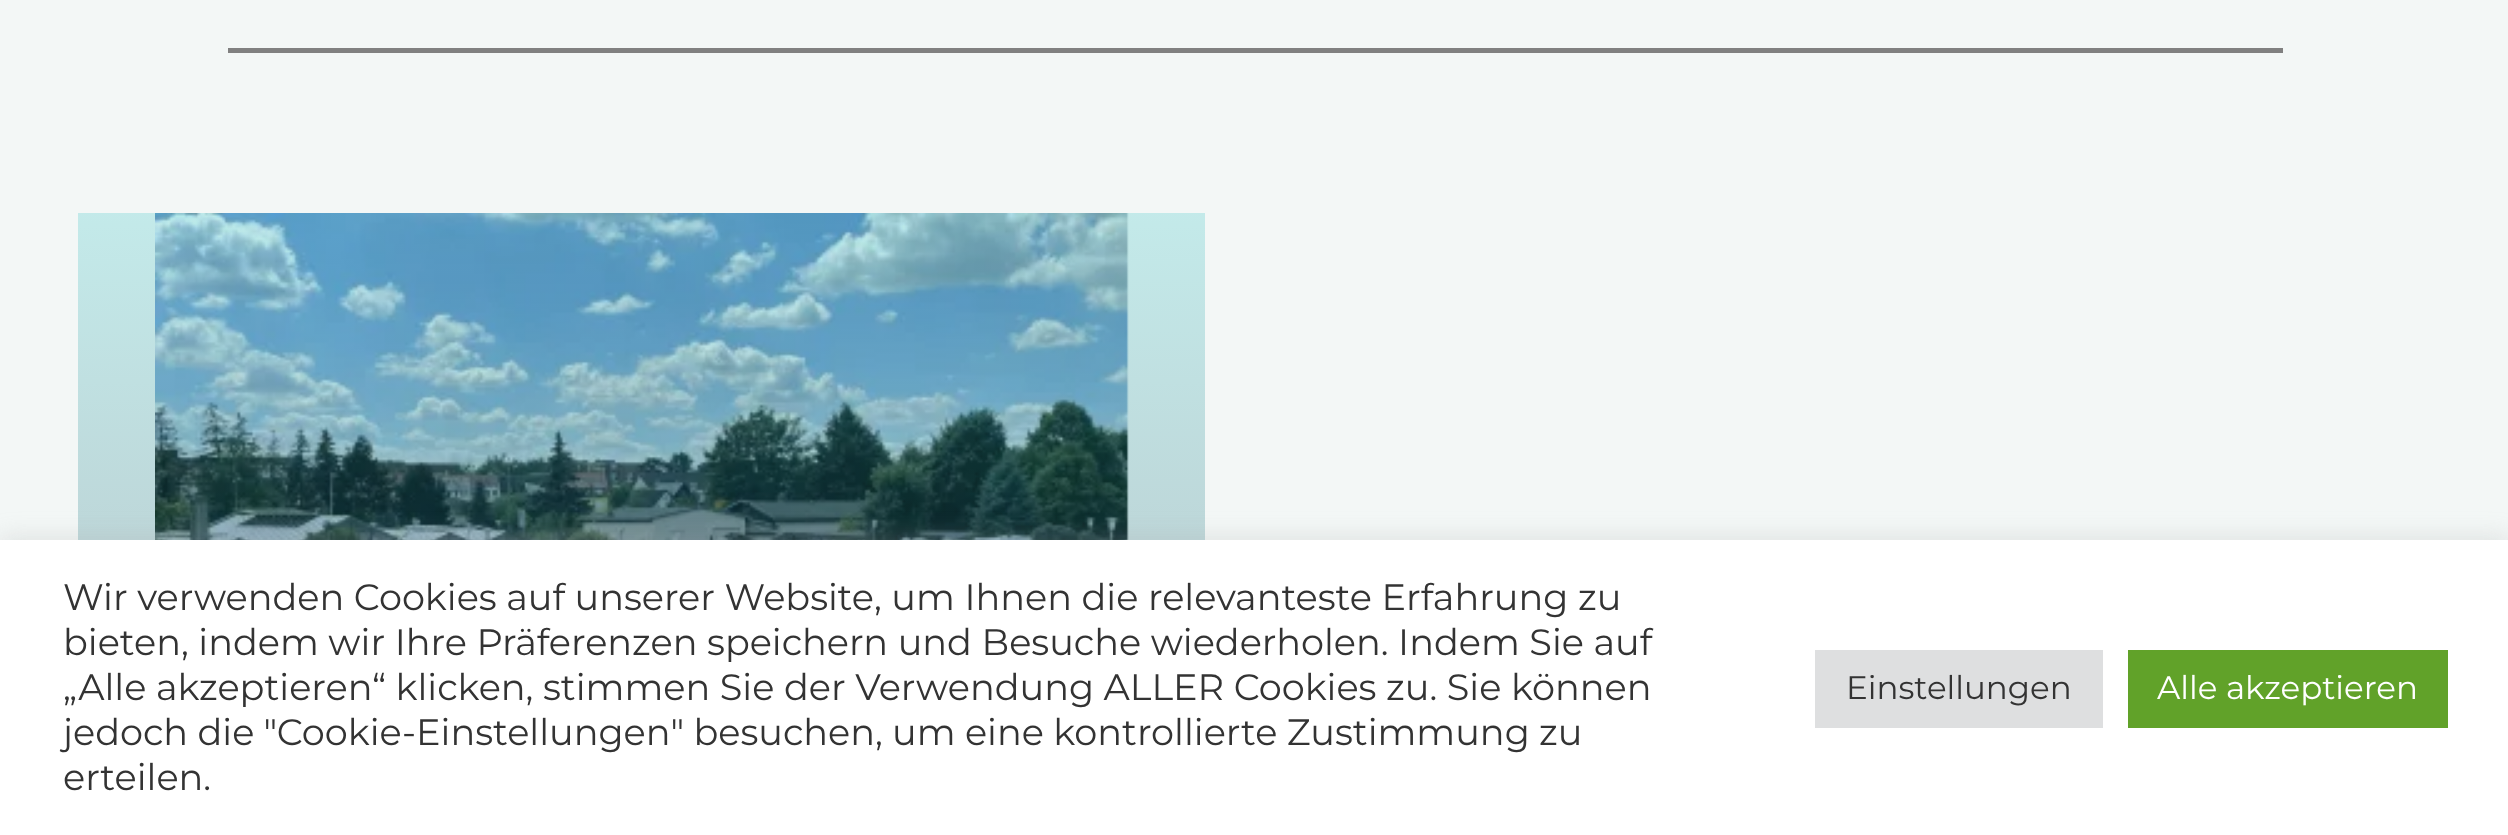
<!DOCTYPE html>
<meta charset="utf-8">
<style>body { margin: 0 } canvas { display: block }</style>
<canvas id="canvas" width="2508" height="835"></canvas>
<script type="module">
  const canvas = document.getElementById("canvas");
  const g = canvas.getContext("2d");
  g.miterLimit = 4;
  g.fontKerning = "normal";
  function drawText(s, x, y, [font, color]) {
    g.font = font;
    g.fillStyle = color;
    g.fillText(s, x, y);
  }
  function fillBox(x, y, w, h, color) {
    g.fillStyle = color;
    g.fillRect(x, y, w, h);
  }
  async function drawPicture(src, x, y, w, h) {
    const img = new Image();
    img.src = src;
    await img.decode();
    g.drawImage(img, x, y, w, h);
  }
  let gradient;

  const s1 = ["36.65px Montserrat", "#333333"];
  const s2 = ["32.5px Montserrat", "#333333"];
  const s3 = ["32.5px Montserrat", "#FFFFFF"];

  fillBox(0, 0, 2508, 835, "#F3F7F6");
  fillBox(228, 48, 2055, 5, "#808080");
  fillBox(78, 213, 1127, 327, "#FFFFFF");
  await drawPicture("pic1.png", 155, 213, 974, 327);
  gradient = g.createLinearGradient(641, 212, 641, 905);
  gradient.addColorStop(0, "rgba(57, 185, 184, 0.3)");
  gradient.addColorStop(1, "rgba(13, 51, 67, 0.3)");
  g.fillStyle = gradient;
  g.fillRect(78, 213, 1127, 327);
  g.fillStyle = "rgba(172, 171, 171, 0.3)";
  g.filter = "blur(12.5px)";
  g.beginPath();
  g.rect(0, 538, 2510, 295);
  g.fill();
  g.filter = "none";
  fillBox(0, 540, 2508, 295, "#FFFFFF");
  drawText("Wir verwenden Cookies auf unserer Website, um Ihnen die relevanteste Erfahrung zu", 63, 610, s1);
  drawText("bieten, indem wir Ihre Präferenzen speichern und Besuche wiederholen. Indem Sie auf", 63, 655, s1);
  drawText("„Alle akzeptieren“ klicken, stimmen Sie der Verwendung ALLER Cookies zu. Sie können", 63, 700, s1);
  g.wordSpacing = "-0.25px";
  drawText("jedoch die \"Cookie-Einstellungen\" besuchen, um eine kontrollierte Zustimmung zu", 63, 745, s1);
  g.wordSpacing = "0px";
  drawText("erteilen.", 63, 790, s1);
  fillBox(1815, 650, 288, 78, "#DEDFE0");
  drawText("Einstellungen", 1846, 699, s2);
  fillBox(2128, 650, 320, 78, "#61A229");
  drawText("Alle akzeptieren", 2157, 699, s3);
</script>
